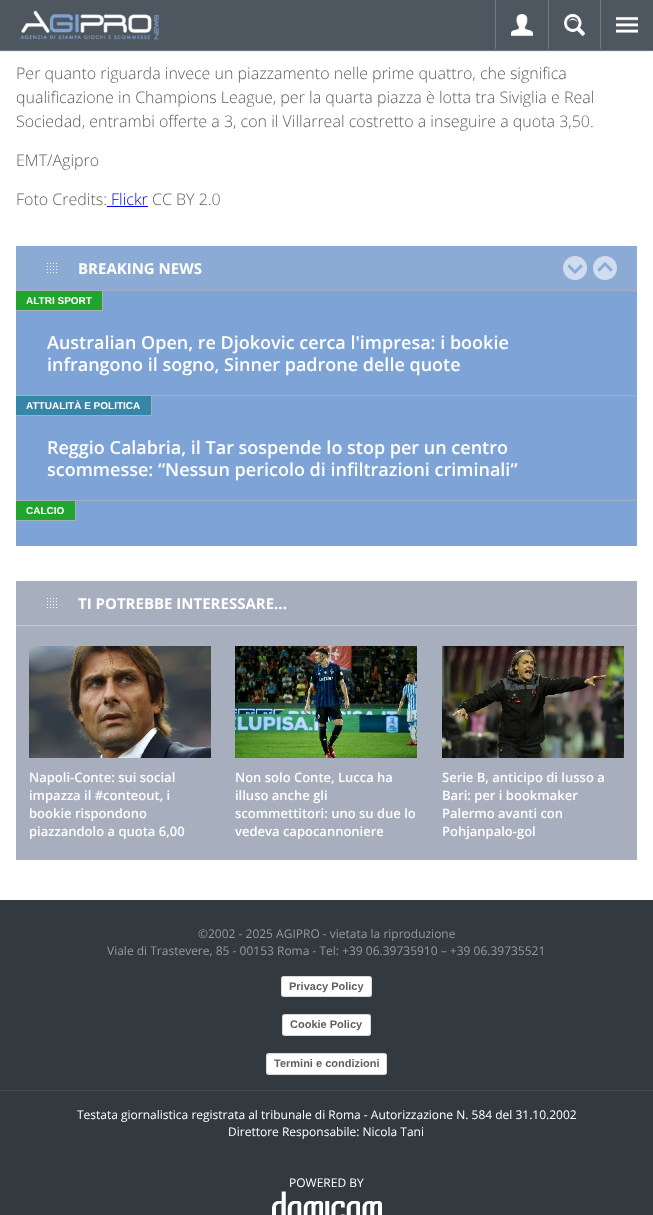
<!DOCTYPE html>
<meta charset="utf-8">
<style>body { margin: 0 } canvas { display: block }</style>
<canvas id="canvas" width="653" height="1215"></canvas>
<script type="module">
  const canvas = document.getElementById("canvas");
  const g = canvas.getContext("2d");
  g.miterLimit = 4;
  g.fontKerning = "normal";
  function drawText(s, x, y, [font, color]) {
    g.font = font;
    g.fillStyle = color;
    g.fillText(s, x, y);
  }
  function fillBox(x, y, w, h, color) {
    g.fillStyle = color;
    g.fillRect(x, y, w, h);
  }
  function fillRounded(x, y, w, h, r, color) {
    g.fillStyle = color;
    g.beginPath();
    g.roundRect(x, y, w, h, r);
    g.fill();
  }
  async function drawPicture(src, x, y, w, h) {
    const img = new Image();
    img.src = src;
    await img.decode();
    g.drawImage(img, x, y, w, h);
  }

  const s1 = ["300 16px Open Sans", "#5E5E5E"];
  const s2 = ["300 16px Open Sans", "#0000EE"];
  const s3 = ["bold 15px Open Sans", "#FFFFFF"];
  const s4 = ["bold 10px Liberation Sans", "#FFFFFF"];
  const s5 = ["600 18px Open Sans", "#FFFFFF"];
  const s6 = ["600 13px Open Sans", "#FFFFFF"];
  const s7 = ["12px Open Sans", "#999999"];
  const s8 = ["bold 11px Liberation Sans", "#5E5E5E"];
  const s9 = ["12px Open Sans", "#FFFFFF"];

  fillBox(0, 0, 653, 1215, "#32393F");
  fillBox(0, 51, 653, 849, "#FFFFFF");
  g.fillStyle = "#333333";
  g.filter = "blur(1px)";
  g.beginPath();
  g.rect(0, 0, 653, 50);
  g.fill();
  g.filter = "none";
  fillBox(0, 0, 653, 50, "#4E5760");
  await drawPicture("pic1.png", 20, 10, 139, 30);
  fillBox(495, 0, 1, 49, "#6C7D89");
  await drawPicture("pic2.png", 511, 14, 22, 22);
  fillBox(548, 0, 1, 49, "#6C7D89");
  await drawPicture("pic3.png", 564, 13, 22, 23);
  fillBox(600, 0, 1, 49, "#6C7D89");
  await drawPicture("pic4.png", 616, 16, 22, 17);
  fillBox(0, 50, 653, 1, "#6C7D89");
  drawText("Per quanto riguarda invece un piazzamento nelle prime quattro, che significa", 16, 79, s1);
  drawText("qualificazione in Champions League, per la quarta piazza è lotta tra Siviglia e Real", 16, 103, s1);
  drawText("Sociedad, entrambi offerte a 3, con il Villarreal costretto a inseguire a quota 3,50.", 16, 127, s1);
  drawText("EMT/Agipro", 16, 166, s1);
  drawText("Foto Credits:", 16, 205, s1);
  drawText("Flickr", 111, 205, s2);
  fillBox(107, 206, 41, 1, "#0000EE");
  drawText("CC BY 2.0", 152, 205, s1);
  fillBox(16, 291, 621, 255, "#7EA3D7");
  fillBox(16, 246, 621, 44, "#8BABD5");
  await drawPicture("pic5.png", 47, 263, 10, 10);
  fillBox(16, 290, 621, 1, "#A4AFBD");
  drawText("BREAKING NEWS", 78, 274, s3);
  await drawPicture("pic6.png", 563, 256, 24, 24);
  await drawPicture("pic7.png", 593, 256, 24, 24);
  fillBox(16, 395, 621, 1, "#A4AFBD");
  fillBox(16, 291, 86, 19, "#20A42D");
  fillBox(102, 291, 1, 20, "#A4AFBD");
  fillBox(16, 310, 87, 1, "#A4AFBD");
  drawText("ALTRI SPORT", 26, 304, s4);
  drawText("Australian Open, re Djokovic cerca l'impresa: i bookie", 47, 349, s5);
  drawText("infrangono il sogno, Sinner padrone delle quote", 47, 371, s5);
  fillBox(16, 500, 621, 1, "#A4AFBD");
  fillBox(16, 396, 135, 19, "#3586A9");
  fillBox(151, 396, 1, 20, "#A4AFBD");
  fillBox(16, 415, 136, 1, "#A4AFBD");
  drawText("ATTUALITÀ E POLITICA", 26, 409, s4);
  drawText("Reggio Calabria, il Tar sospende lo stop per un centro", 47, 454, s5);
  drawText("scommesse: “Nessun pericolo di infiltrazioni criminali”", 47, 476, s5);
  fillBox(16, 501, 59, 19, "#20A42D");
  fillBox(75, 501, 1, 20, "#A4AFBD");
  fillBox(16, 520, 60, 1, "#A4AFBD");
  drawText("CALCIO", 26, 514, s4);
  fillBox(16, 581, 621, 279, "#A7AEBE");
  await drawPicture("pic8.png", 47, 598, 10, 10);
  fillBox(16, 625, 621, 1, "#C3CAD2");
  drawText("TI POTREBBE INTERESSARE...", 78, 609, s3);
  await drawPicture("pic9.png", 29, 646, 182, 112);
  drawText("Napoli-Conte: sui social", 29, 782, s6);
  drawText("impazza il #conteout, i", 29, 800, s6);
  drawText("bookie rispondono", 29, 818, s6);
  drawText("piazzandolo a quota 6,00", 29, 836, s6);
  await drawPicture("pic10.png", 235, 646, 182, 112);
  drawText("Non solo Conte, Lucca ha", 235, 782, s6);
  drawText("illuso anche gli", 235, 800, s6);
  drawText("scommettitori: uno su due lo", 235, 818, s6);
  drawText("vedeva capocannoniere", 235, 836, s6);
  await drawPicture("pic11.png", 442, 646, 182, 112);
  drawText("Serie B, anticipo di lusso a", 442, 782, s6);
  drawText("Bari: per i bookmaker", 442, 800, s6);
  drawText("Palermo avanti con", 442, 818, s6);
  drawText("Pohjanpalo-gol", 442, 836, s6);
  fillBox(0, 1090, 653, 1, "#424749");
  drawText("©2002 - 2025 AGIPRO - vietata la riproduzione", 198, 938, s7);
  drawText("Viale di Trastevere, 85 - 00153 Roma - Tel: +39 06.39735910 – +39 06.39735521", 107, 955, s7);
  fillRounded(281, 976, 91, 21, 3, "#FFFFFF");
  g.beginPath();
  g.roundRect(281.5, 976.5, 90, 20, 2.5);
  g.strokeStyle = "rgba(0, 0, 0, 0.15)";
  g.stroke();
  drawText("Privacy Policy", 289, 990, s8);
  fillRounded(282, 1014, 89, 22, 3, "#FFFFFF");
  g.beginPath();
  g.roundRect(282.5, 1014.5, 88, 21, 2.5);
  g.stroke();
  drawText("Cookie Policy", 290, 1028, s8);
  fillRounded(266, 1053, 121, 22, 3, "#FFFFFF");
  g.beginPath();
  g.roundRect(266.5, 1053.5, 120, 21, 2.5);
  g.stroke();
  drawText("Termini e condizioni", 274, 1067, s8);
  drawText("Testata giornalistica registrata al tribunale di Roma - Autorizzazione N. 584 del 31.10.2002", 77, 1119, s9);
  drawText("Direttore Responsabile: Nicola Tani", 228, 1136, s9);
  drawText("POWERED BY", 289, 1187, s9);
  await drawPicture("pic12.png", 272, 1191, 110, 24);
</script>
